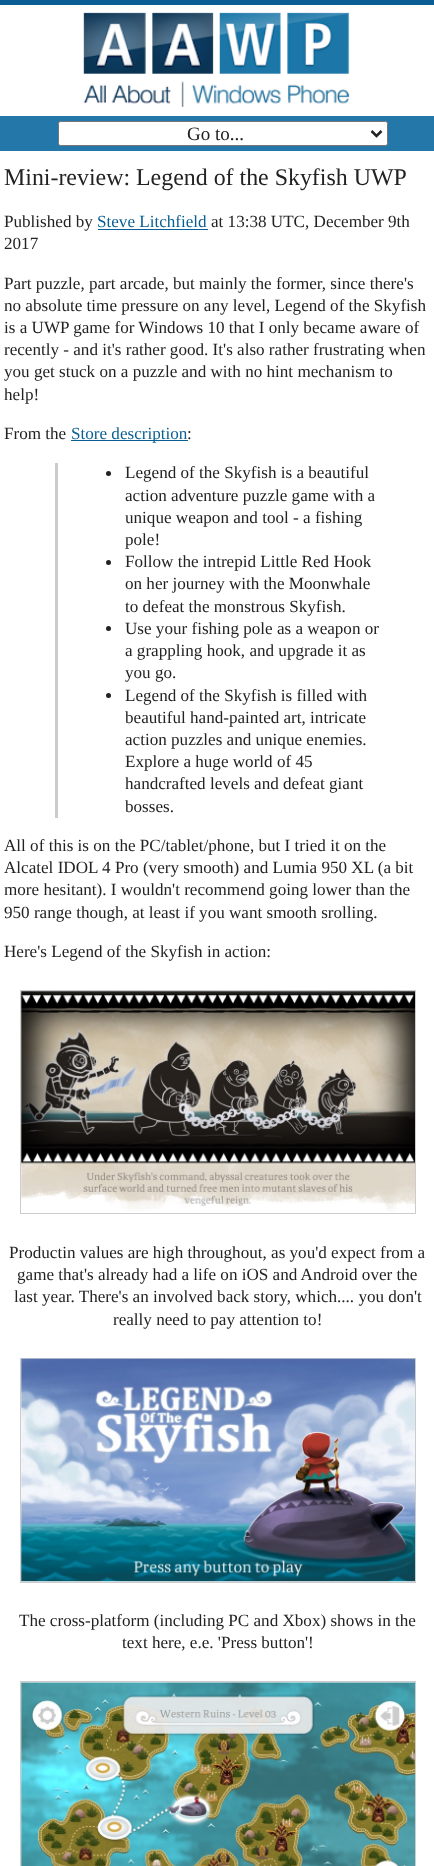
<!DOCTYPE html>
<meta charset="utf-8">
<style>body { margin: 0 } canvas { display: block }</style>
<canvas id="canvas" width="434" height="1866"></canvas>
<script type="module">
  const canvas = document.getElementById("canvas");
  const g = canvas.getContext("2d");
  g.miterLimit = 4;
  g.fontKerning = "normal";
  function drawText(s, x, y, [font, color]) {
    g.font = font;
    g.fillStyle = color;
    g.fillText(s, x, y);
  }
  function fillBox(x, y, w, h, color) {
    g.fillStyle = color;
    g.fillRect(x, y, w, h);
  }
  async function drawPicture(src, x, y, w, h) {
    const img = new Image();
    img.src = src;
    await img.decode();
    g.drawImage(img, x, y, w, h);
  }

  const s1 = ["19px Liberation Serif", "#222222"];
  const s2 = ["23.9px Liberation Serif", "#222222"];
  const s3 = ["17.1px Liberation Serif", "#222222"];
  const s4 = ["17.1px Liberation Serif", "#095F93"];

  fillBox(0, 0, 434, 1866, "#FFFFFF");
  fillBox(0, 0, 434, 5, "#095F93");
  await drawPicture("pic1.png", 83, 12, 267, 95);
  fillBox(0, 116, 434, 35, "#2477A9");
  g.fillStyle = "#FFFFFF";
  g.beginPath();
  g.roundRect(58.5, 121.5, 329, 24, 2);
  g.fill();
  g.strokeStyle = "#767676";
  g.stroke();
  g.beginPath();
  g.moveTo(371.5, 131);
  g.lineTo(376.5, 136);
  g.lineTo(381.5, 131);
  g.strokeStyle = "#222222";
  g.lineWidth = 2.5;
  g.stroke();
  drawText("Go to...", 187, 140, s1);
  drawText("Mini-review: Legend of the Skyfish UWP", 4, 185, s2);
  drawText("Published by", 4, 227, s3);
  drawText("Steve Litchfield", 97, 227, s4);
  fillBox(98, 229, 110, 1, "#095F93");
  drawText("at 13:38 UTC, December 9th", 211, 227, s3);
  drawText("2017", 4, 249, s3);
  drawText("Part puzzle, part arcade, but mainly the former, since there's", 4, 289, s3);
  drawText("no absolute time pressure on any level, Legend of the Skyfish", 4, 311, s3);
  drawText("is a UWP game for Windows 10 that I only became aware of", 4, 333, s3);
  drawText("recently - and it's rather good. It's also rather frustrating when", 4, 355, s3);
  drawText("you get stuck on a puzzle and with no hint mechanism to", 4, 377, s3);
  drawText("help!", 4, 400, s3);
  drawText("From the", 4, 439, s3);
  fillBox(71, 440, 117, 1, "#095F93");
  drawText("Store description", 71, 439, s4);
  drawText(":", 187, 439, s3);
  fillBox(55, 463, 3, 355, "#CCCCCC");
  g.fillStyle = "#222222";
  g.beginPath();
  g.arc(108.5, 473.5, 2.5, 0, Math.PI * 2);
  g.fill();
  drawText("Legend of the Skyfish is a beautiful", 125, 478, s3);
  drawText("action adventure puzzle game with a", 125, 501, s3);
  drawText("unique weapon and tool - a fishing", 125, 523, s3);
  drawText("pole!", 125, 545, s3);
  g.beginPath();
  g.arc(108.5, 562.5, 2.5, 0, Math.PI * 2);
  g.fill();
  drawText("Follow the intrepid Little Red Hook", 125, 567, s3);
  drawText("on her journey with the Moonwhale", 125, 589, s3);
  drawText("to defeat the monstrous Skyfish.", 125, 612, s3);
  g.beginPath();
  g.arc(108.5, 628.5, 2.5, 0, Math.PI * 2);
  g.fill();
  drawText("Use your fishing pole as a weapon or", 125, 634, s3);
  drawText("a grappling hook, and upgrade it as", 125, 656, s3);
  drawText("you go.", 125, 678, s3);
  g.beginPath();
  g.arc(108.5, 695.5, 2.5, 0, Math.PI * 2);
  g.fill();
  drawText("Legend of the Skyfish is filled with", 125, 701, s3);
  drawText("beautiful hand-painted art, intricate", 125, 723, s3);
  drawText("action puzzles and unique enemies.", 125, 745, s3);
  drawText("Explore a huge world of 45", 125, 767, s3);
  drawText("handcrafted levels and defeat giant", 125, 789, s3);
  drawText("bosses.", 125, 812, s3);
  drawText("All of this is on the PC/tablet/phone, but I tried it on the", 4, 851, s3);
  drawText("Alcatel IDOL 4 Pro (very smooth) and Lumia 950 XL (a bit", 4, 873, s3);
  drawText("more hesitant). I wouldn't recommend going lower than the", 4, 895, s3);
  drawText("950 range though, at least if you want smooth srolling.", 4, 918, s3);
  drawText("Here's Legend of the Skyfish in action:", 4, 957, s3);
  g.strokeStyle = "#CCCCCC";
  g.lineWidth = 1;
  g.strokeRect(20.5, 990.5, 395, 223);
  await drawPicture("pic2.png", 21, 991, 394, 221);
  drawText("Productin values are high throughout, as you'd expect from a", 9, 1258, s3);
  drawText("game that's already had a life on iOS and Android over the", 17, 1280, s3);
  drawText("last year. There's an involved back story, which.... you don't", 14, 1302, s3);
  drawText("really need to pay attention to!", 113, 1325, s3);
  g.strokeRect(20.5, 1358.5, 395, 224);
  await drawPicture("pic3.png", 21, 1358, 394, 224);
  drawText("The cross-platform (including PC and Xbox) shows in the", 19, 1626, s3);
  drawText("text here, e.e. 'Press button'!", 122, 1648, s3);
  g.strokeRect(20.5, 1681.5, 395, 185);
  await drawPicture("pic4.png", 21, 1682, 394, 184);
</script>
